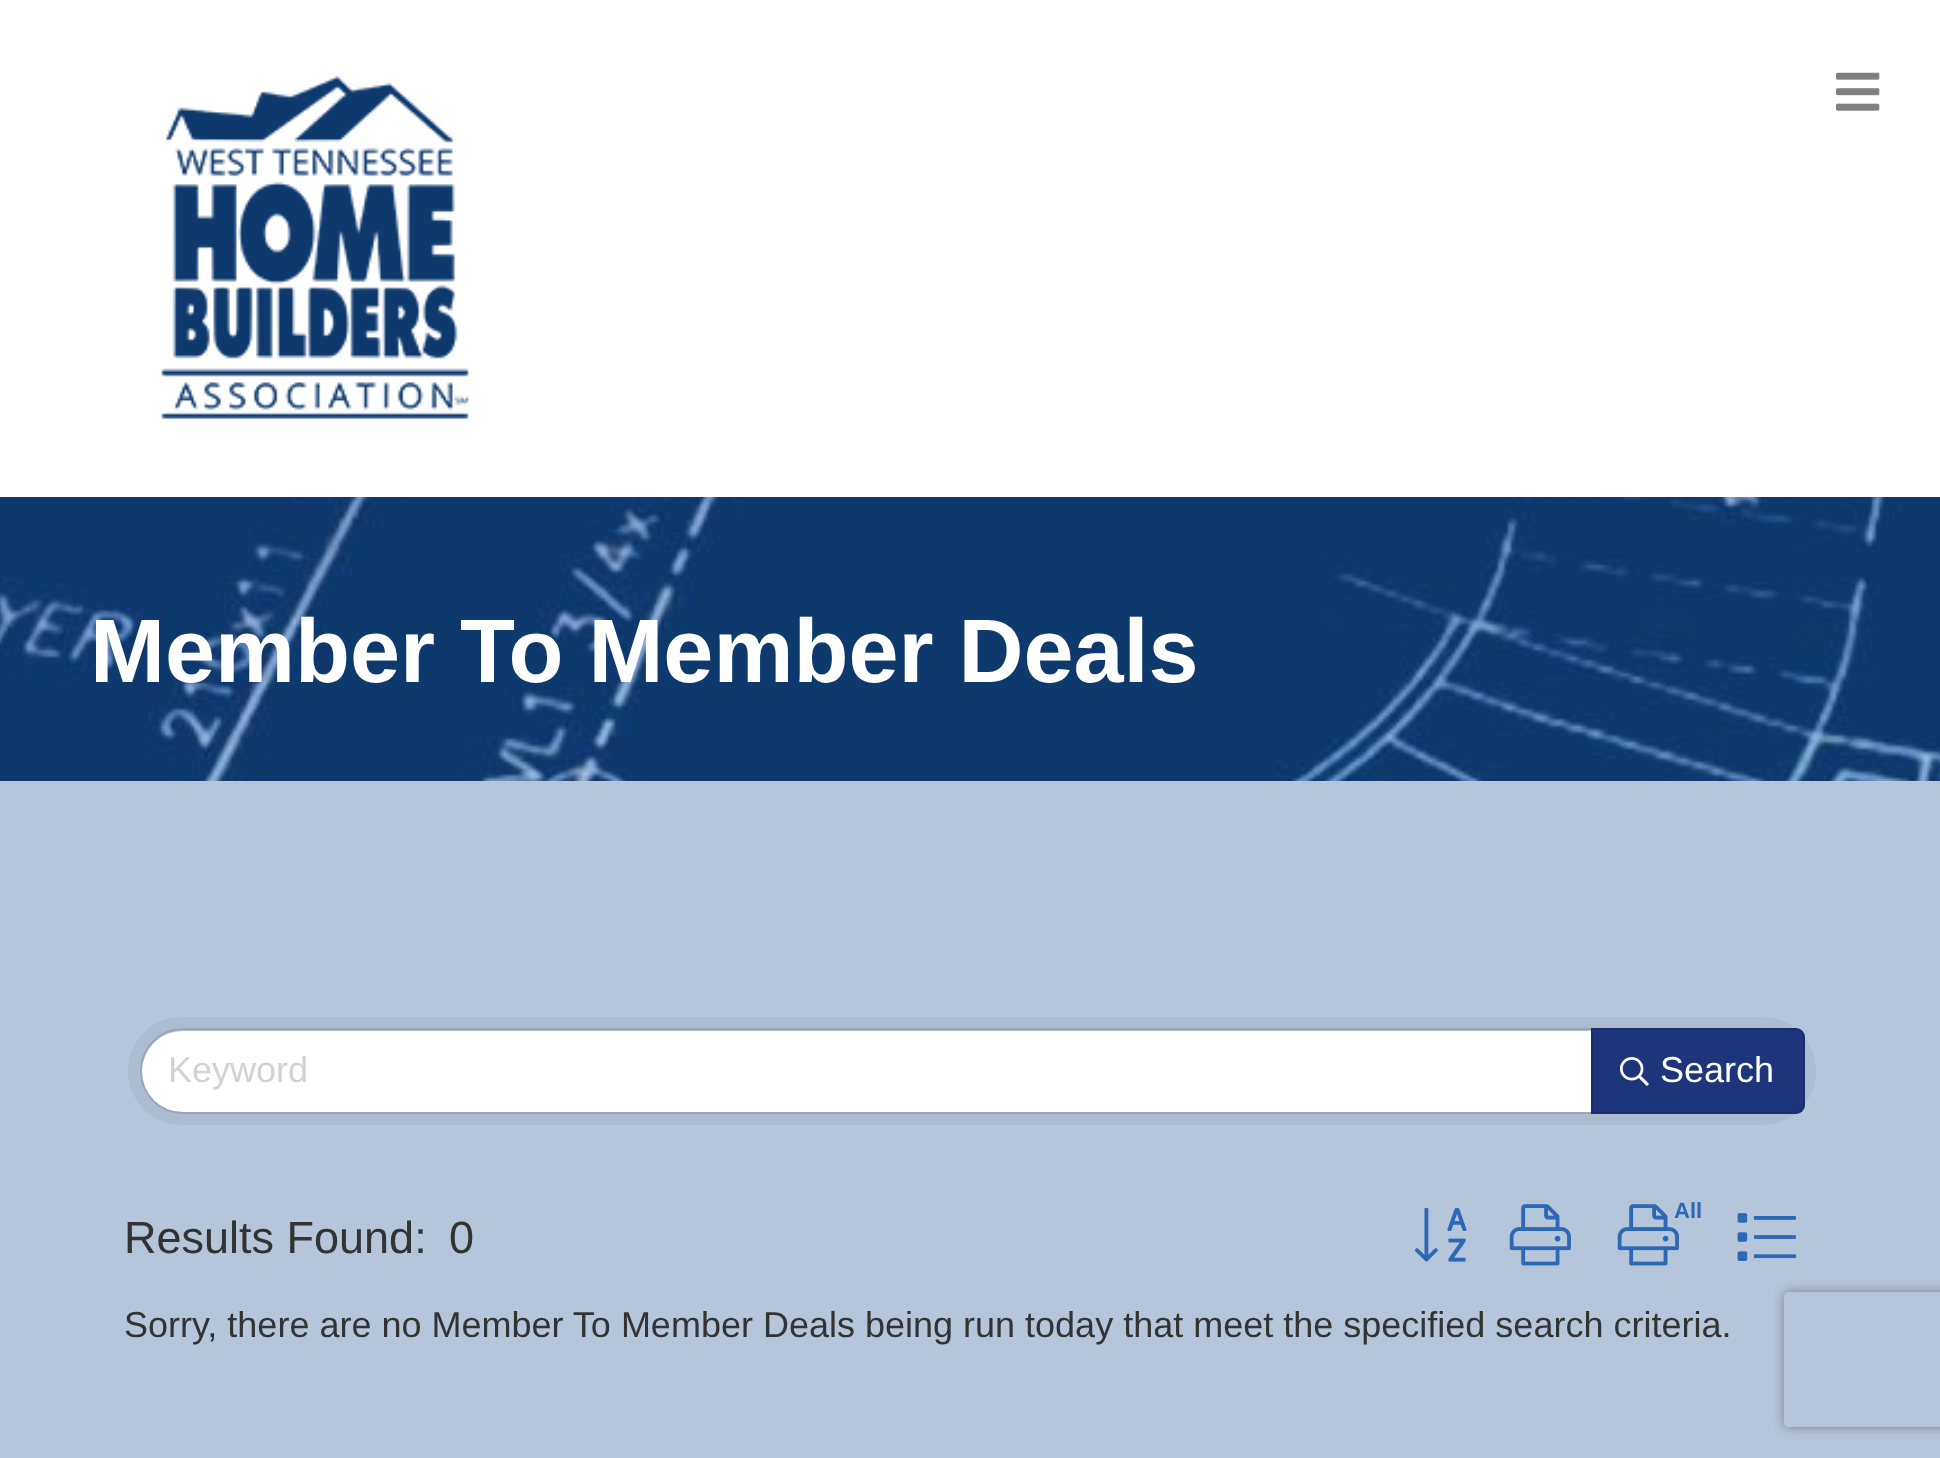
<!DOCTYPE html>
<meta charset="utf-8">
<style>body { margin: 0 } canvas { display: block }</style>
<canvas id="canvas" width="1940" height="1458"></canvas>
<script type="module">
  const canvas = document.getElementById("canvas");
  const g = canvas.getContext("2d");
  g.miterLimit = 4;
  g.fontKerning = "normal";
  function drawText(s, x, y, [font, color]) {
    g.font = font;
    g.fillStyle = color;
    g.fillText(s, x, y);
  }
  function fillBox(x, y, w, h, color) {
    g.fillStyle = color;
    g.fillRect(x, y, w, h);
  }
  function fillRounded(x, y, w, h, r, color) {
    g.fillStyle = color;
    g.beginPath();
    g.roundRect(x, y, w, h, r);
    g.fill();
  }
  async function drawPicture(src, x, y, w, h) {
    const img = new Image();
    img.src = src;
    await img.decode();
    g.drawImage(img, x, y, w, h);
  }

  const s1 = ["bold 90px Liberation Sans", "#FFFFFF"];
  const s2 = ["36px Liberation Sans", "#D2D2D2"];
  const s3 = ["36px Liberation Sans", "#FFFFFF"];
  const s4 = ["bold 22px Liberation Sans", "#2D68B4"];
  const s5 = ["45px Liberation Sans", "#333333"];
  const s6 = ["36px Liberation Sans", "#333333"];

  fillBox(0, 0, 1940, 1458, "#FFFFFF");
  await drawPicture("pic1.png", 161, 76, 308, 344);
  await drawPicture("pic2.png", 1836, 72, 44, 39);
  fillBox(0, 781, 1940, 677, "#B5C5DA");
  await drawPicture("pic3.png", 0, 497, 1940, 284);
  drawText("Member To Member Deals", 90, 682, s1);
  fillRounded(128, 1017, 1688, 108, 54, "#ADBDD1");
  g.fillStyle = "#FFFFFF";
  g.beginPath();
  g.roundRect(142, 1031, 1449, 81, [40.5, 0, 0, 40.5]);
  g.fill();
  g.beginPath();
  g.roundRect(141, 1029, 1451, 84, [42, 0, 0, 42]);
  g.strokeStyle = "rgba(0, 0, 0, 0.12)";
  g.lineWidth = 2;
  g.stroke();
  drawText("Keyword", 168, 1082, s2);
  g.fillStyle = "#1D367B";
  g.beginPath();
  g.roundRect(1591, 1028, 214, 86, [0, 9, 9, 0]);
  g.fill();
  g.beginPath();
  g.roundRect(1592, 1029, 212, 84, [0, 8, 8, 0]);
  g.stroke();
  await drawPicture("pic4.png", 1620, 1057, 29, 29);
  drawText("Search", 1660, 1082, s3);
  await drawPicture("pic5.png", 1414, 1208, 53, 54);
  await drawPicture("pic6.png", 1509, 1204, 62, 62);
  await drawPicture("pic6.png", 1617, 1204, 62, 62);
  drawText("All", 1674, 1218, s4);
  await drawPicture("pic7.png", 1737, 1213, 59, 48);
  drawText("Results Found:", 124, 1253, s5);
  drawText("0", 449, 1253, s5);
  drawText("Sorry, there are no Member To Member Deals being run today that meet the specified search criteria.", 124, 1337, s6);
  g.save();
  g.beginPath();
  g.moveTo(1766, 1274);
  g.lineTo(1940, 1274);
  g.lineTo(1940, 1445);
  g.lineTo(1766, 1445);
  g.closePath();
  g.moveTo(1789, 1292);
  g.lineTo(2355, 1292);
  g.bezierCurveTo(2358, 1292, 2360, 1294, 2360, 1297);
  g.lineTo(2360, 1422);
  g.bezierCurveTo(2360, 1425, 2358, 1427, 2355, 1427);
  g.lineTo(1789, 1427);
  g.bezierCurveTo(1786, 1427, 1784, 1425, 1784, 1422);
  g.lineTo(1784, 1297);
  g.bezierCurveTo(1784, 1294, 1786, 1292, 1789, 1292);
  g.closePath();
  g.clip("evenodd");
  g.fillStyle = "#808080";
  g.filter = "blur(5.5px)";
  g.beginPath();
  g.roundRect(1784, 1292, 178, 135, 5);
  g.fill();
  g.filter = "none";
  g.restore();
</script>
